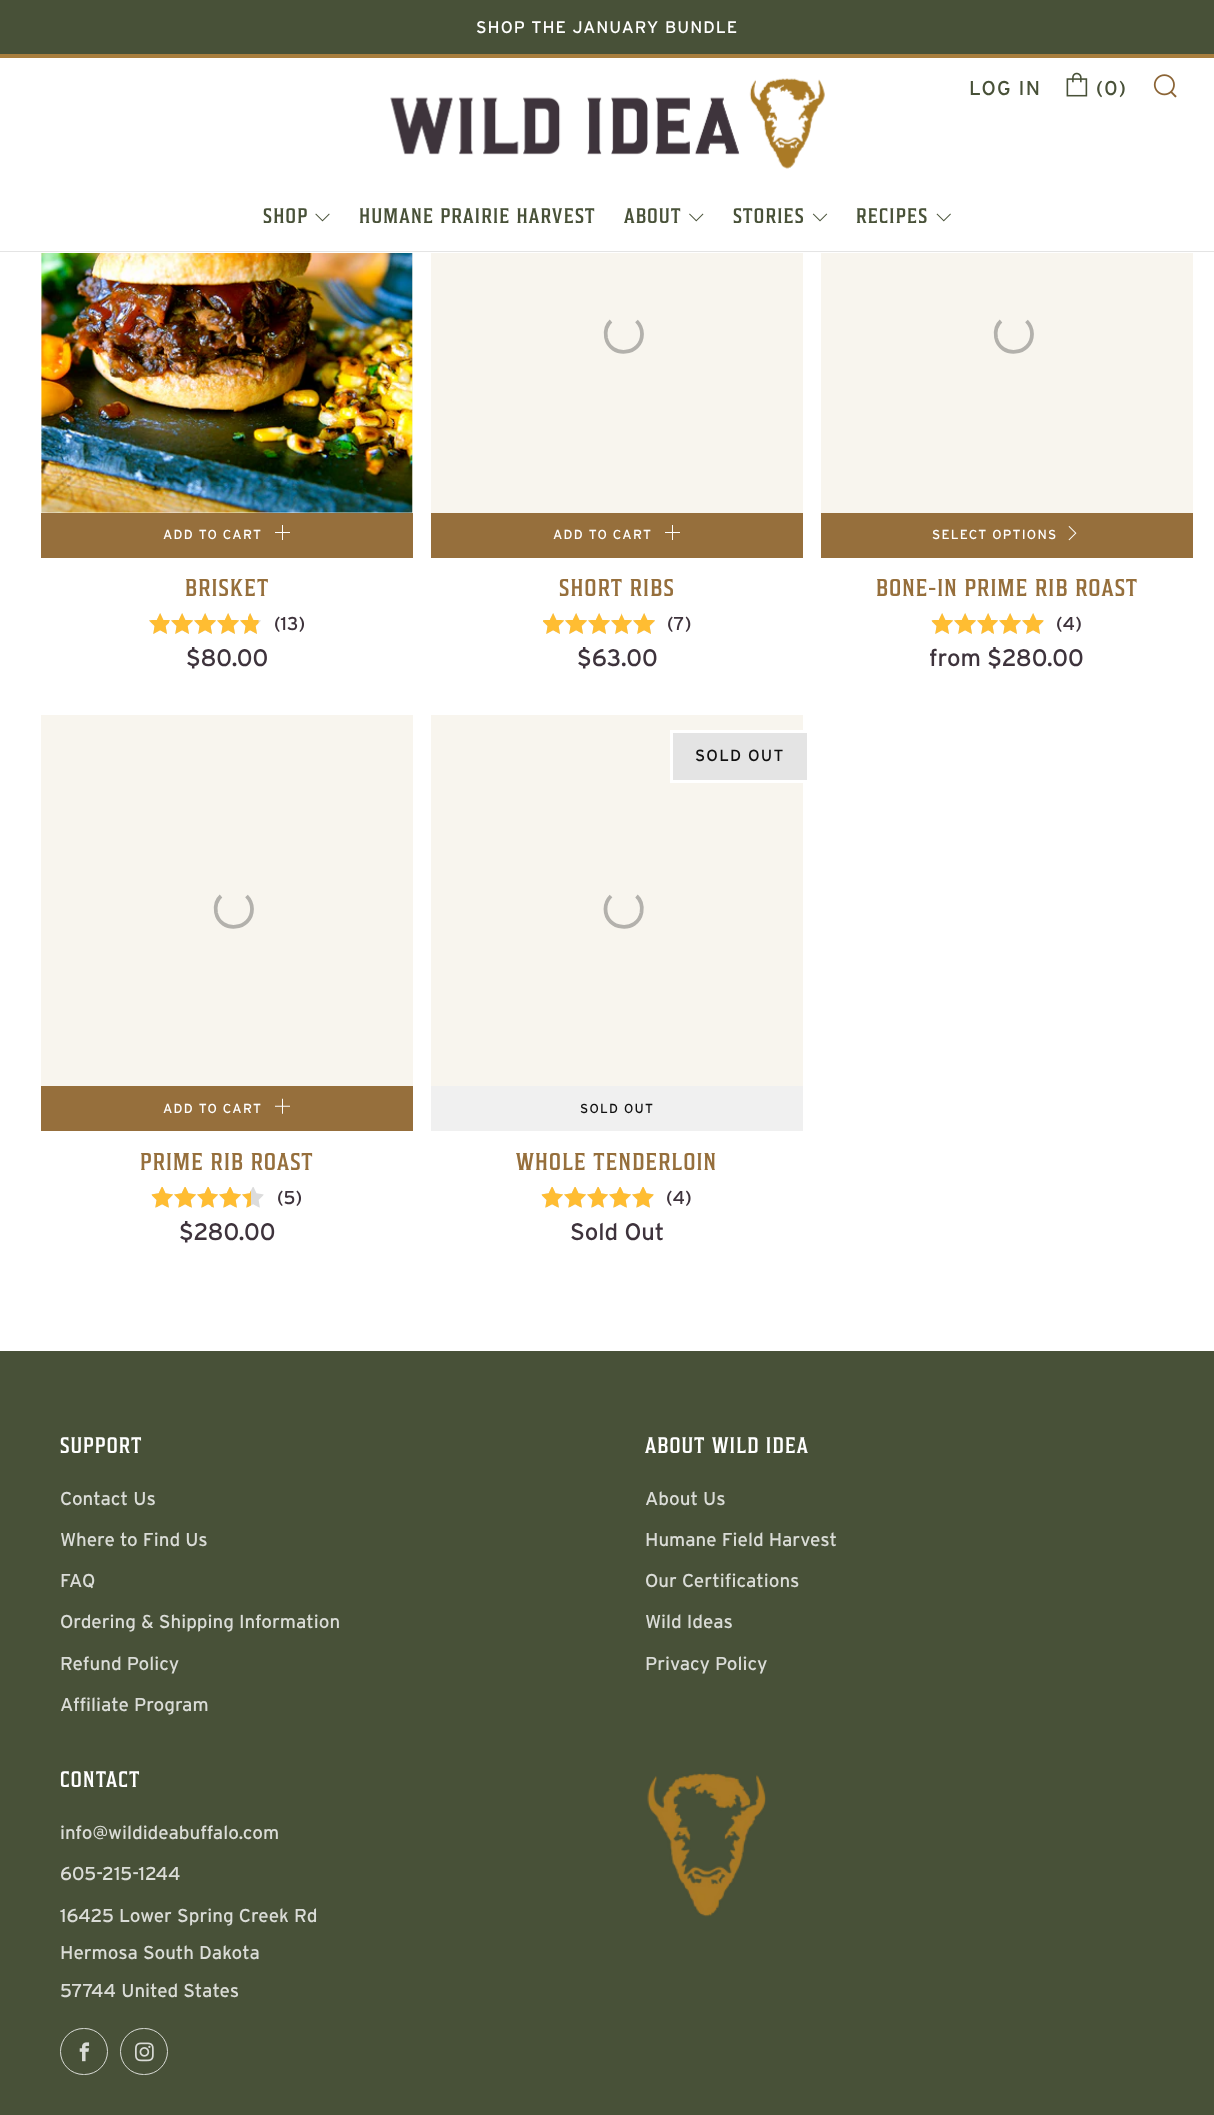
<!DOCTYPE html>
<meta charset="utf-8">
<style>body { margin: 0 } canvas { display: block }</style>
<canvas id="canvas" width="1214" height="2115"></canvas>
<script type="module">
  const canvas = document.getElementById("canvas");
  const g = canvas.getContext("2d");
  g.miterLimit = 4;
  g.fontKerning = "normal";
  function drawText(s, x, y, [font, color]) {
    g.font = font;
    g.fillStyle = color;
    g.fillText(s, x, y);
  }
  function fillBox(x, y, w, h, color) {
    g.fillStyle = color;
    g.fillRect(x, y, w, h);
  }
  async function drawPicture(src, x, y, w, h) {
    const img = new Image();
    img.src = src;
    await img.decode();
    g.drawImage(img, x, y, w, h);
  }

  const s1 = ["16.9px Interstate", "#FFFFFF"];
  const s2 = ["20px Interstate", "#485138"];
  const s3 = ["21.25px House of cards", "#485138"];
  const s4 = ["13.1px Interstate", "#FFFFFF"];
  const s5 = ["24.4px House of cards", "#966F3C"];
  const s6 = ["18.75px Interstate", "#3E333C"];
  const s7 = ["23.75px Interstate", "#3E333C"];
  const s8 = ["16.25px Interstate", "#111111"];
  const s9 = ["13.1px Interstate", "#111111"];
  const s10 = ["22.5px House of cards", "#FFFFFF"];
  const s11 = ["18.75px Interstate", "#DADCD7"];

  fillBox(0, 0, 1214, 2115, "#FFFFFF");
  fillBox(0, 0, 1214, 54, "#485138");
  g.letterSpacing = "1px";
  drawText("SHOP THE JANUARY BUNDLE", 476, 33, s1);
  fillBox(0, 251, 1214, 1, "#E4E4E4");
  fillBox(0, 54, 1214, 4, "#A87E3E");
  await drawPicture("pic1.png", 390, 78, 435, 91);
  g.letterSpacing = "1.25px";
  drawText("LOG IN", 969, 95, s2);
  await drawPicture("pic2.png", 1066, 72, 22, 25);
  drawText("(0)", 1096, 95, s2);
  await drawPicture("pic3.png", 1153, 74, 24, 24);
  drawText("SHOP", 263, 223, s3);
  await drawPicture("pic4.png", 315, 213, 15, 9);
  drawText("HUMANE PRAIRIE HARVEST", 359, 223, s3);
  drawText("ABOUT", 624, 223, s3);
  await drawPicture("pic5.png", 689, 213, 15, 9);
  drawText("STORIES", 733, 223, s3);
  await drawPicture("pic6.png", 812, 213, 16, 9);
  drawText("RECIPES", 856, 223, s3);
  await drawPicture("pic7.png", 936, 213, 15, 9);
  fillBox(41, 253, 372, 260, "#F8F5EE");
  await drawPicture("pic8.png", 41, 253, 372, 260);
  fillBox(41, 513, 372, 45, "#966F3C");
  drawText("ADD TO CART", 163, 539, s4);
  await drawPicture("pic9.png", 275, 525, 15, 15);
  drawText("BRISKET", 185, 596, s5);
  await drawPicture("pic10.png", 149, 613, 112, 21);
  await drawPicture("pic11.png", 149, 613, 110, 21);
  g.letterSpacing = "0px";
  drawText("(13)", 274, 630, s6);
  drawText("$80.00", 186, 666, s7);
  fillBox(431, 253, 372, 260, "#F8F5EE");
  g.beginPath();
  g.moveTo(636.5, 321);
  g.bezierCurveTo(640, 324.5, 642, 329, 642, 334);
  g.bezierCurveTo(642, 355.5, 610, 358.5, 606, 337.5);
  g.bezierCurveTo(605, 331.5, 606.5, 325, 611, 321);
  g.strokeStyle = "#B3B1AC";
  g.lineWidth = 3.8;
  g.stroke();
  fillBox(431, 513, 372, 45, "#966F3C");
  g.letterSpacing = "1.25px";
  drawText("ADD TO CART", 553, 539, s4);
  await drawPicture("pic9.png", 665, 525, 15, 15);
  drawText("SHORT RIBS", 559, 596, s5);
  await drawPicture("pic12.png", 543, 613, 112, 21);
  await drawPicture("pic13.png", 543, 613, 112, 21);
  g.letterSpacing = "0px";
  drawText("(7)", 667, 630, s6);
  drawText("$63.00", 577, 666, s7);
  fillBox(821, 253, 372, 260, "#F8F5EE");
  g.beginPath();
  g.moveTo(1026.5, 321);
  g.bezierCurveTo(1030, 324.5, 1032, 329, 1032, 334);
  g.bezierCurveTo(1032, 355.5, 1000, 358.5, 996, 337.5);
  g.bezierCurveTo(995, 331.5, 996.5, 325, 1001, 321);
  g.stroke();
  fillBox(821, 513, 372, 45, "#966F3C");
  g.letterSpacing = "1.25px";
  drawText("SELECT OPTIONS", 932, 539, s4);
  await drawPicture("pic14.png", 1068, 526, 9, 15);
  drawText("BONE-IN PRIME RIB ROAST", 876, 596, s5);
  await drawPicture("pic15.png", 931, 613, 113, 21);
  await drawPicture("pic16.png", 931, 613, 113, 21);
  g.letterSpacing = "0px";
  drawText("(4)", 1056, 630, s6);
  drawText("from $280.00", 929, 666, s7);
  fillBox(41, 715, 372, 371, "#F8F5EE");
  g.beginPath();
  g.moveTo(246.5, 896);
  g.bezierCurveTo(250, 899.5, 252, 904, 252, 909);
  g.bezierCurveTo(252, 930.5, 220, 933.5, 216, 912.5);
  g.bezierCurveTo(215, 906.5, 216.5, 900, 221, 896);
  g.stroke();
  fillBox(41, 1086, 372, 45, "#966F3C");
  g.letterSpacing = "1.25px";
  drawText("ADD TO CART", 163, 1113, s4);
  await drawPicture("pic17.png", 275, 1098, 15, 16);
  drawText("PRIME RIB ROAST", 140, 1170, s5);
  await drawPicture("pic18.png", 151, 1187, 113, 21);
  await drawPicture("pic19.png", 151, 1187, 100, 21);
  g.letterSpacing = "0px";
  drawText("(5)", 277, 1204, s6);
  drawText("$280.00", 179, 1240, s7);
  fillBox(431, 715, 372, 371, "#F8F5EE");
  g.fillStyle = "#E4E4E4";
  g.beginPath();
  g.rect(671.5, 731.5, 137, 50);
  g.fill();
  g.strokeStyle = "#FFFFFF";
  g.lineWidth = 3;
  g.stroke();
  g.letterSpacing = "1.25px";
  drawText("SOLD OUT", 695, 761, s8);
  g.beginPath();
  g.moveTo(636.5, 896);
  g.bezierCurveTo(641, 900, 642.5, 906.5, 641.5, 912.5);
  g.bezierCurveTo(637.5, 933.5, 605.5, 930.5, 605.5, 909);
  g.bezierCurveTo(605.5, 904, 607.5, 899.5, 611, 896);
  g.strokeStyle = "#B3B1AC";
  g.lineWidth = 3.8;
  g.stroke();
  fillBox(431, 1086, 372, 45, "#F0F0F0");
  drawText("SOLD OUT", 580, 1113, s9);
  drawText("WHOLE TENDERLOIN", 516, 1170, s5);
  await drawPicture("pic18.png", 541, 1187, 113, 21);
  await drawPicture("pic20.png", 541, 1187, 113, 21);
  g.letterSpacing = "0px";
  drawText("(4)", 666, 1204, s6);
  drawText("Sold Out", 570, 1240, s7);
  fillBox(0, 1351, 1214, 764, "#485138");
  g.letterSpacing = "1.25px";
  drawText("SUPPORT", 60, 1453, s10);
  g.letterSpacing = "0px";
  drawText("Contact Us", 60, 1505, s11);
  drawText("Where to Find Us", 60, 1546, s11);
  drawText("FAQ", 60, 1587, s11);
  drawText("Ordering & Shipping Information", 60, 1628, s11);
  drawText("Refund Policy", 60, 1670, s11);
  drawText("Affiliate Program", 60, 1711, s11);
  g.letterSpacing = "1.25px";
  drawText("ABOUT WILD IDEA", 645, 1453, s10);
  g.letterSpacing = "0px";
  drawText("About Us", 645, 1505, s11);
  drawText("Humane Field Harvest", 645, 1546, s11);
  drawText("Our Certifications", 645, 1587, s11);
  drawText("Wild Ideas", 645, 1628, s11);
  drawText("Privacy Policy", 645, 1670, s11);
  g.letterSpacing = "1.25px";
  drawText("CONTACT", 60, 1787, s10);
  g.letterSpacing = "0px";
  drawText("info@wildideabuffalo.com", 60, 1839, s11);
  drawText("605-215-1244", 60, 1880, s11);
  drawText("16425 Lower Spring Creek Rd", 60, 1922, s11);
  drawText("Hermosa South Dakota", 60, 1959, s11);
  drawText("57744 United States", 60, 1997, s11);
  g.beginPath();
  g.roundRect(60.5, 2028.5, 47, 46, 23);
  g.strokeStyle = "#DADCD7";
  g.lineWidth = 1;
  g.stroke();
  await drawPicture("pic21.png", 79, 2042, 11, 20);
  g.beginPath();
  g.roundRect(120.5, 2028.5, 47, 46, 23);
  g.stroke();
  await drawPicture("pic22.png", 135, 2042, 19, 20);
  await drawPicture("pic23.png", 647, 1772, 119, 145);
</script>
